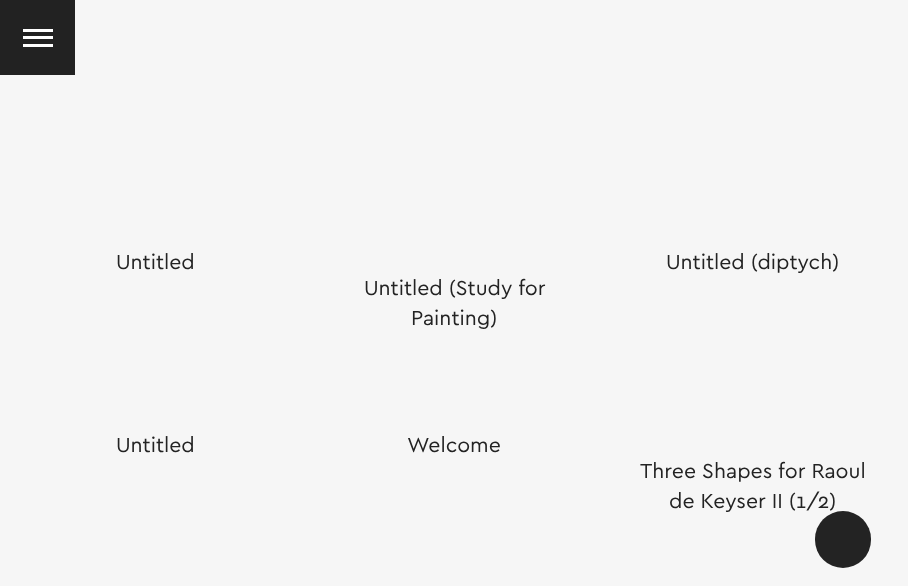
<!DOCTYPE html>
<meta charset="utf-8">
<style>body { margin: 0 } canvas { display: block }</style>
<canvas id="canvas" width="908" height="586"></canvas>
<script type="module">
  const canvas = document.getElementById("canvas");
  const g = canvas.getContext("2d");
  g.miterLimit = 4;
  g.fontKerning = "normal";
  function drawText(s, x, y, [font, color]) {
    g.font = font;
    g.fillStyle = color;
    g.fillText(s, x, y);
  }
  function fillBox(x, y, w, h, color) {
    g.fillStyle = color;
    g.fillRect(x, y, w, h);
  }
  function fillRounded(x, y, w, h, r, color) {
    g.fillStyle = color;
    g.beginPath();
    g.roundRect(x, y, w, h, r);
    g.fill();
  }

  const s1 = ["21.25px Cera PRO", "#232323"];

  fillBox(0, 0, 908, 586, "#F6F6F6");
  fillBox(0, 0, 75, 75, "#222222");
  fillBox(23, 29, 30, 3, "#FFFFFF");
  fillBox(23, 36, 30, 3, "#FFFFFF");
  fillBox(23, 44, 30, 3, "#FFFFFF");
  drawText("Untitled", 116, 269, s1);
  drawText("Untitled (diptych)", 666, 269, s1);
  drawText("Untitled (Study for", 364, 295, s1);
  drawText("Painting)", 411, 325, s1);
  drawText("Untitled", 116, 452, s1);
  drawText("Welcome", 407, 452, s1);
  drawText("Three Shapes for Raoul", 640, 478, s1);
  drawText("de Keyser II (1/2)", 669, 508, s1);
  fillRounded(815, 511, 56, 57, 28, "#232323");
</script>
